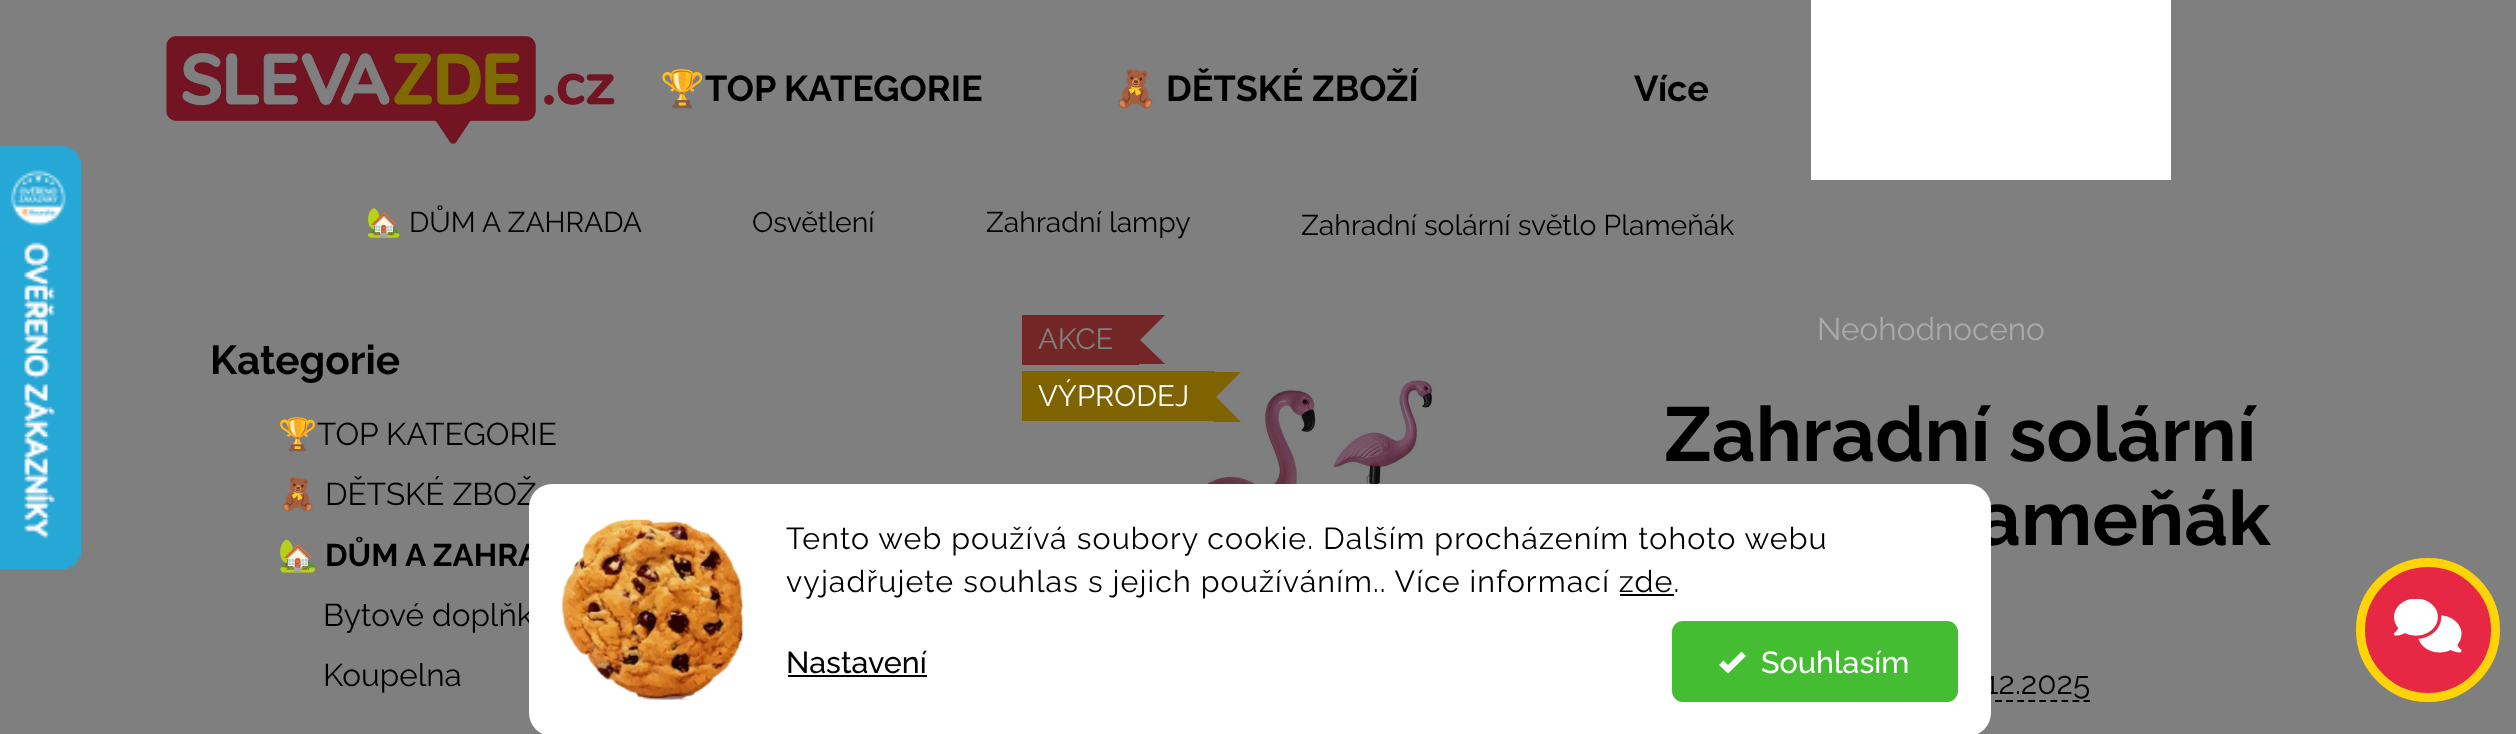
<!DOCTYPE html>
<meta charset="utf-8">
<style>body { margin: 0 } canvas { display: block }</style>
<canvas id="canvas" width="2516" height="734"></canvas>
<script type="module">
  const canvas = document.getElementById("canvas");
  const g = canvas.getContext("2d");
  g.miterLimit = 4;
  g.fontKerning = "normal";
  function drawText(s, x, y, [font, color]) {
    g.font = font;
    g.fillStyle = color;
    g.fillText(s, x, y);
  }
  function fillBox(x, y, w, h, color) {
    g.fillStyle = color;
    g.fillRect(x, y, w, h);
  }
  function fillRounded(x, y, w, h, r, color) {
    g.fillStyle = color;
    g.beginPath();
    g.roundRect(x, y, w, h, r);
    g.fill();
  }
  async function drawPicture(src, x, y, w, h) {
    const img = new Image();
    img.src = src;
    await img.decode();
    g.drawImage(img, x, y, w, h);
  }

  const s1 = ["29.25px Raleway", "#FFFFFF"];
  const s2 = ["bold 36px Noto Color Emoji", "#000000"];
  const s3 = ["bold 36px Raleway", "#000000"];
  const s4 = ["28.4px Noto Color Emoji", "#000000"];
  const s5 = ["28.4px Raleway", "#000000"];
  const s6 = ["bold 40.5px Raleway", "#000000"];
  const s7 = ["31.5px Noto Color Emoji", "#000000"];
  const s8 = ["31.5px Raleway", "#000000"];
  const s9 = ["bold 31.5px Noto Color Emoji", "#000000"];
  const s10 = ["bold 31.5px Raleway", "#000000"];
  const s11 = ["31.5px Raleway", "#AAAAAA"];
  const s12 = ["bold 76.5px Raleway", "#000000"];
  const s13 = ["30.4px Raleway", "#000000"];
  const s14 = ["500 30.4px Raleway", "#000000"];
  const s15 = ["500 30.4px Raleway", "#FFFFFF"];

  fillBox(0, 0, 2516, 734, "#FFFFFF");
  await drawPicture("pic2.png", 166, 36, 449, 108);
  fillBox(1022, 315, 117, 50, "#E94B4B");
  drawText("AKCE", 1038, 349, s1);
  g.fillStyle = "#E94B4B";
  g.beginPath();
  g.moveTo(1111, 338);
  g.lineTo(1138, 338);
  g.lineTo(1165, 364);
  g.lineTo(1138, 364);
  g.closePath();
  g.fill();
  g.beginPath();
  g.moveTo(1138, 315);
  g.lineTo(1165, 315);
  g.lineTo(1138, 342);
  g.lineTo(1111, 342);
  g.closePath();
  g.fill();
  await drawPicture("pic3.png", 1161, 380, 272, 104);
  fillBox(1022, 371, 193, 50, "#FFC702");
  g.beginPath();
  g.moveTo(1187, 395);
  g.lineTo(1214, 395);
  g.lineTo(1241, 422);
  g.lineTo(1214, 422);
  g.closePath();
  g.fill();
  g.beginPath();
  g.moveTo(1214, 372);
  g.lineTo(1241, 372);
  g.lineTo(1214, 399);
  g.lineTo(1187, 399);
  g.closePath();
  g.fill();
  g.beginPath();
  g.moveTo(1962, 701);
  g.lineTo(2090, 701);
  g.strokeStyle = "#000000";
  g.lineWidth = 2.2;
  g.setLineDash([6.75, 4.3]);
  g.stroke();
  g.fillStyle = "rgba(0, 0, 0, 0.5)";
  g.filter = "blur(180px)";
  g.beginPath();
  g.roundRect(-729, -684, 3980, 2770, 1283);
  g.fill();
  g.filter = "none";
  await drawPicture("pic1.png", 0, 146, 81, 424);
  drawText("🏆", 660, 101, s2);
  drawText("TOP KATEGORIE", 705, 101, s3);
  drawText("🧸", 1113, 101, s2);
  drawText("DĚTSKÉ ZBOŽÍ", 1166, 101, s3);
  drawText("Více", 1634, 101, s3);
  fillBox(1811, 0, 360, 180, "#FFFFFF");
  drawText("🏡", 366, 232, s4);
  drawText("DŮM A ZAHRADA", 409, 232, s5);
  drawText("Osvětlení", 752, 232, s5);
  drawText("Zahradní lampy", 986, 232, s5);
  drawText("Zahradní solární světlo Plameňák", 1301, 235, s5);
  drawText("Kategorie", 210, 374, s6);
  drawText("🏆", 278, 445, s7);
  drawText("TOP KATEGORIE", 317, 445, s8);
  drawText("🧸", 278, 505, s7);
  drawText("DĚTSKÉ ZBOŽ", 325, 505, s8);
  drawText("🏡", 278, 566, s9);
  drawText("DŮM A ZAHRA", 325, 566, s10);
  drawText("Bytové doplňk", 323, 626, s8);
  drawText("Koupelna", 323, 686, s8);
  drawText("VÝPRODEJ", 1038, 406, s1);
  drawText("Neohodnoceno", 1817, 340, s11);
  drawText("Zahradní solární", 1664, 461, s12);
  drawText("ameňák", 1977, 545, s12);
  drawText("12.2025", 1985, 694, s8);
  fillRounded(529, 484, 1462, 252, 23, "#FFFFFF");
  await drawPicture("pic4.png", 562, 519, 182, 181);
  g.letterSpacing = "1.12px";
  drawText("Tento web používá soubory cookie. Dalším procházením tohoto webu", 786, 549, s13);
  drawText("vyjadřujete souhlas s jejich používáním.. Více informací zde.", 786, 592, s13);
  fillBox(1620, 594, 54, 2, "#000000");
  g.letterSpacing = "0px";
  drawText("Nastavení", 786, 673, s14);
  fillBox(788, 675, 139, 2, "#000000");
  g.fillStyle = "#44BD32";
  g.beginPath();
  g.roundRect(1673, 622, 284, 79, 10);
  g.fill();
  g.strokeStyle = "#44BD32";
  g.lineWidth = 2;
  g.setLineDash([]);
  g.stroke();
  g.fillStyle = "#FFFFFF";
  g.beginPath();
  g.moveTo(1741.5, 651.5);
  g.lineTo(1728, 665);
  g.lineTo(1723.5, 660.5);
  g.lineTo(1719, 665);
  g.lineTo(1728, 673.5);
  g.lineTo(1746, 656);
  g.closePath();
  g.fill();
  drawText("Souhlasím", 1761, 673, s15);
  g.fillStyle = "#E72844";
  g.beginPath();
  g.arc(2428, 630, 67.5, 0, Math.PI * 2);
  g.fill();
  g.strokeStyle = "#FFD406";
  g.lineWidth = 9;
  g.stroke();
  await drawPicture("pic5.png", 2394, 599, 68, 54);
</script>
